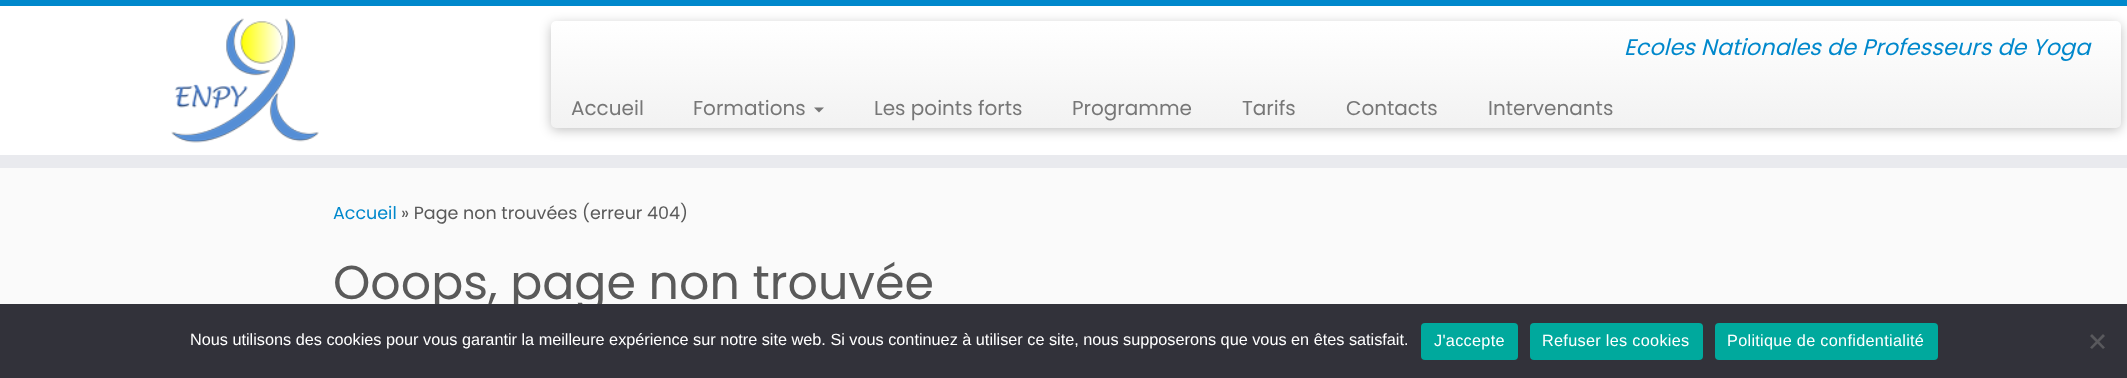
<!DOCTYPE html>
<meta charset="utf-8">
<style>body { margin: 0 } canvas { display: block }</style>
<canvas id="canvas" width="2127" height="378"></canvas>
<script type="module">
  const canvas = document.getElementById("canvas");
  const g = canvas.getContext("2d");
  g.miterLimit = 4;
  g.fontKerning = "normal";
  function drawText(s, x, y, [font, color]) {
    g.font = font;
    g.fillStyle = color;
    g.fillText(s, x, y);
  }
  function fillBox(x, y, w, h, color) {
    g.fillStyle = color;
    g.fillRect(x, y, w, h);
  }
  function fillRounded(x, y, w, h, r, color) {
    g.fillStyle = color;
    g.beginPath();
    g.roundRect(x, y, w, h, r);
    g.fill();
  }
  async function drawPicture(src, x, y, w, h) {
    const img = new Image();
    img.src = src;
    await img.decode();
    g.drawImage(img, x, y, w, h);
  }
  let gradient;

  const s1 = ["italic 22.5px Poppins", "#0088CC"];
  const s2 = ["20px Poppins", "#777777"];
  const s3 = ["17.5px Poppins", "#0088CC"];
  const s4 = ["17.5px Poppins", "#5A5A5A"];
  const s5 = ["47.5px Poppins", "#5A5A5A"];
  const s6 = ["16.25px Liberation Sans", "#FFFFFF"];

  fillBox(0, 0, 2127, 378, "#FAFAFA");
  fillBox(0, 6, 2127, 149, "#FFFFFF");
  fillBox(0, 0, 2127, 6, "#0088CC");
  fillBox(0, 155, 2127, 13, "#E9EAEE");
  await drawPicture("pic1.png", 171, 18, 148, 125);
  g.fillStyle = "rgba(0, 0, 0, 0.25)";
  g.filter = "blur(6px)";
  g.beginPath();
  g.roundRect(551, 24, 1570, 106, 5);
  g.fill();
  g.filter = "none";
  gradient = g.createLinearGradient(1336, 21, 1336, 128);
  gradient.addColorStop(0, "#FFFFFF");
  gradient.addColorStop(1, "#F2F2F2");
  g.fillStyle = gradient;
  g.beginPath();
  g.roundRect(551, 21, 1570, 107, 5);
  g.fill();
  drawText("Ecoles Nationales de Professeurs de Yoga", 1624, 55, s1);
  drawText("Accueil", 571, 115, s2);
  drawText("Formations", 693, 115, s2);
  g.beginPath();
  g.moveTo(814, 107.5);
  g.lineTo(824, 107.5);
  g.lineTo(819, 112.5);
  g.closePath();
  g.fill();
  drawText("Les points forts", 874, 115, s2);
  drawText("Programme", 1072, 115, s2);
  drawText("Tarifs", 1242, 115, s2);
  drawText("Contacts", 1346, 115, s2);
  drawText("Intervenants", 1488, 115, s2);
  drawText("Accueil", 333, 219, s3);
  drawText("» Page non trouvées (erreur 404)", 401, 219, s4);
  drawText("Ooops, page non trouvée", 333, 299, s5);
  fillBox(0, 304, 2127, 74, "#32323A");
  drawText("Nous utilisons des cookies pour vous garantir la meilleure expérience sur notre site web. Si vous continuez à utiliser ce site, nous supposerons que vous en êtes satisfait.", 190, 345, s6);
  fillRounded(1421, 323, 97, 37, 4, "#00A99D");
  g.letterSpacing = "0.3px";
  drawText("J'accepte", 1434, 346, s6);
  fillRounded(1530, 323, 173, 37, 4, "#00A99D");
  drawText("Refuser les cookies", 1542, 346, s6);
  fillRounded(1715, 323, 223, 37, 4, "#00A99D");
  drawText("Politique de confidentialité", 1727, 346, s6);
  g.fillStyle = "#59595D";
  g.beginPath();
  g.moveTo(2103, 334);
  g.lineTo(2105, 336);
  g.lineTo(2092, 349);
  g.lineTo(2090, 347.5);
  g.closePath();
  g.fill();
  g.beginPath();
  g.moveTo(2090, 336);
  g.lineTo(2092, 334);
  g.lineTo(2105, 347.5);
  g.lineTo(2103, 349);
  g.closePath();
  g.fill();
</script>
